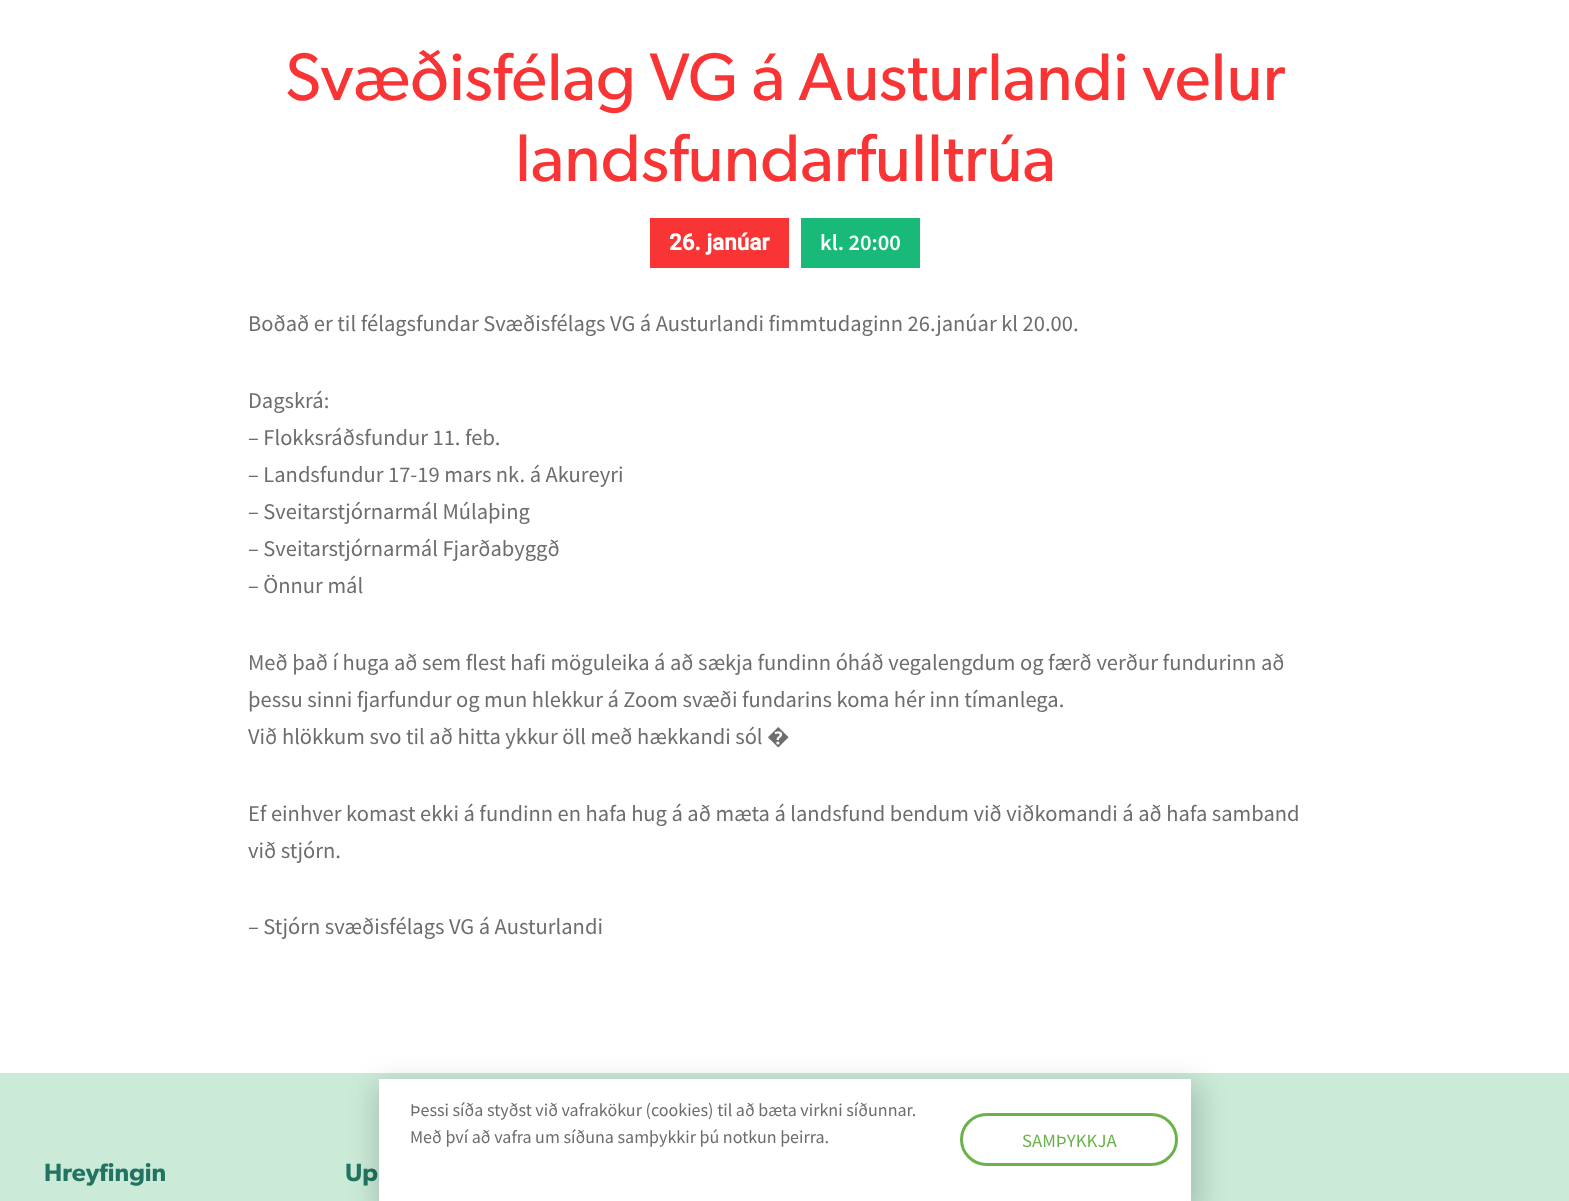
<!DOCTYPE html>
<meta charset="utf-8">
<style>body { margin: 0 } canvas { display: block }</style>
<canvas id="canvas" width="1569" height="1201"></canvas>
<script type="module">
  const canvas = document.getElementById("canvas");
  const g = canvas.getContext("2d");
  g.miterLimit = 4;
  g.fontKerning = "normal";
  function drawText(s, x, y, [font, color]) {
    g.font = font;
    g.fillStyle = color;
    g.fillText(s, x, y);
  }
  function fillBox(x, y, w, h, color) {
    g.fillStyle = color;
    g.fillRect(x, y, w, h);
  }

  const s1 = ["67.5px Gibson", "#F93434"];
  const s2 = ["bold 22.5px Roboto", "#FFFFFF"];
  const s3 = ["600 22.5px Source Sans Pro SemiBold", "#FFFFFF"];
  const s4 = ["22.5px Source Sans Pro", "#6D6D6D"];
  const s5 = ["22.5px Noto Sans", "#6D6D6D"];
  const s6 = ["600 25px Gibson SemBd", "#217462"];
  const s7 = ["18px Source Sans Pro", "#6D6D6D"];
  const s8 = ["18.75px Source Sans Pro", "#6BB24D"];

  fillBox(0, 0, 1569, 1201, "#FFFFFF");
  drawText("Svæðisfélag VG á Austurlandi velur", 285, 100, s1);
  drawText("landsfundarfulltrúa", 515, 181, s1);
  fillBox(650, 218, 139, 50, "#F93434");
  drawText("26. janúar", 669, 250, s2);
  fillBox(801, 218, 119, 50, "#19BA79");
  drawText("kl. 20:00", 820, 250, s3);
  drawText("Boðað er til félagsfundar Svæðisfélags VG á Austurlandi fimmtudaginn 26.janúar kl 20.00.", 248, 331, s4);
  drawText("Dagskrá:", 248, 408, s4);
  drawText("– Flokksráðsfundur 11. feb.", 248, 445, s4);
  drawText("– Landsfundur 17-19 mars nk. á Akureyri", 248, 482, s4);
  drawText("– Sveitarstjórnarmál Múlaþing", 248, 519, s4);
  drawText("– Sveitarstjórnarmál Fjarðabyggð", 248, 556, s4);
  drawText("– Önnur mál", 248, 593, s4);
  drawText("Með það í huga að sem flest hafi möguleika á að sækja fundinn óháð vegalengdum og færð verður fundurinn að", 248, 670, s4);
  drawText("þessu sinni fjarfundur og mun hlekkur á Zoom svæði fundarins koma hér inn tímanlega.", 248, 707, s4);
  drawText("Við hlökkum svo til að hitta ykkur öll með hækkandi sól", 248, 744, s4);
  drawText("�", 767, 744, s5);
  drawText("Ef einhver komast ekki á fundinn en hafa hug á að mæta á landsfund bendum við viðkomandi á að hafa samband", 248, 821, s4);
  drawText("við stjórn.", 248, 858, s4);
  drawText("– Stjórn svæðisfélags VG á Austurlandi", 248, 934, s4);
  fillBox(0, 1073, 1569, 128, "#CBEAD8");
  drawText("Hreyfingin", 44, 1181, s6);
  drawText("Up", 345, 1181, s6);
  g.fillStyle = "rgba(0, 0, 0, 0.2)";
  g.filter = "blur(14.5px)";
  g.beginPath();
  g.rect(378, 1085, 820, 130);
  g.fill();
  g.filter = "none";
  fillBox(379, 1079, 812, 122, "#FFFFFF");
  drawText("Þessi síða styðst við vafrakökur (cookies) til að bæta virkni síðunnar.", 410, 1116, s7);
  drawText("Með því að vafra um síðuna samþykkir þú notkun þeirra.", 410, 1143, s7);
  g.beginPath();
  g.roundRect(961.5, 1114.5, 215, 50, 25);
  g.strokeStyle = "#6BB24D";
  g.lineWidth = 3;
  g.stroke();
  drawText("SAMÞYKKJA", 1022, 1147, s8);
</script>
